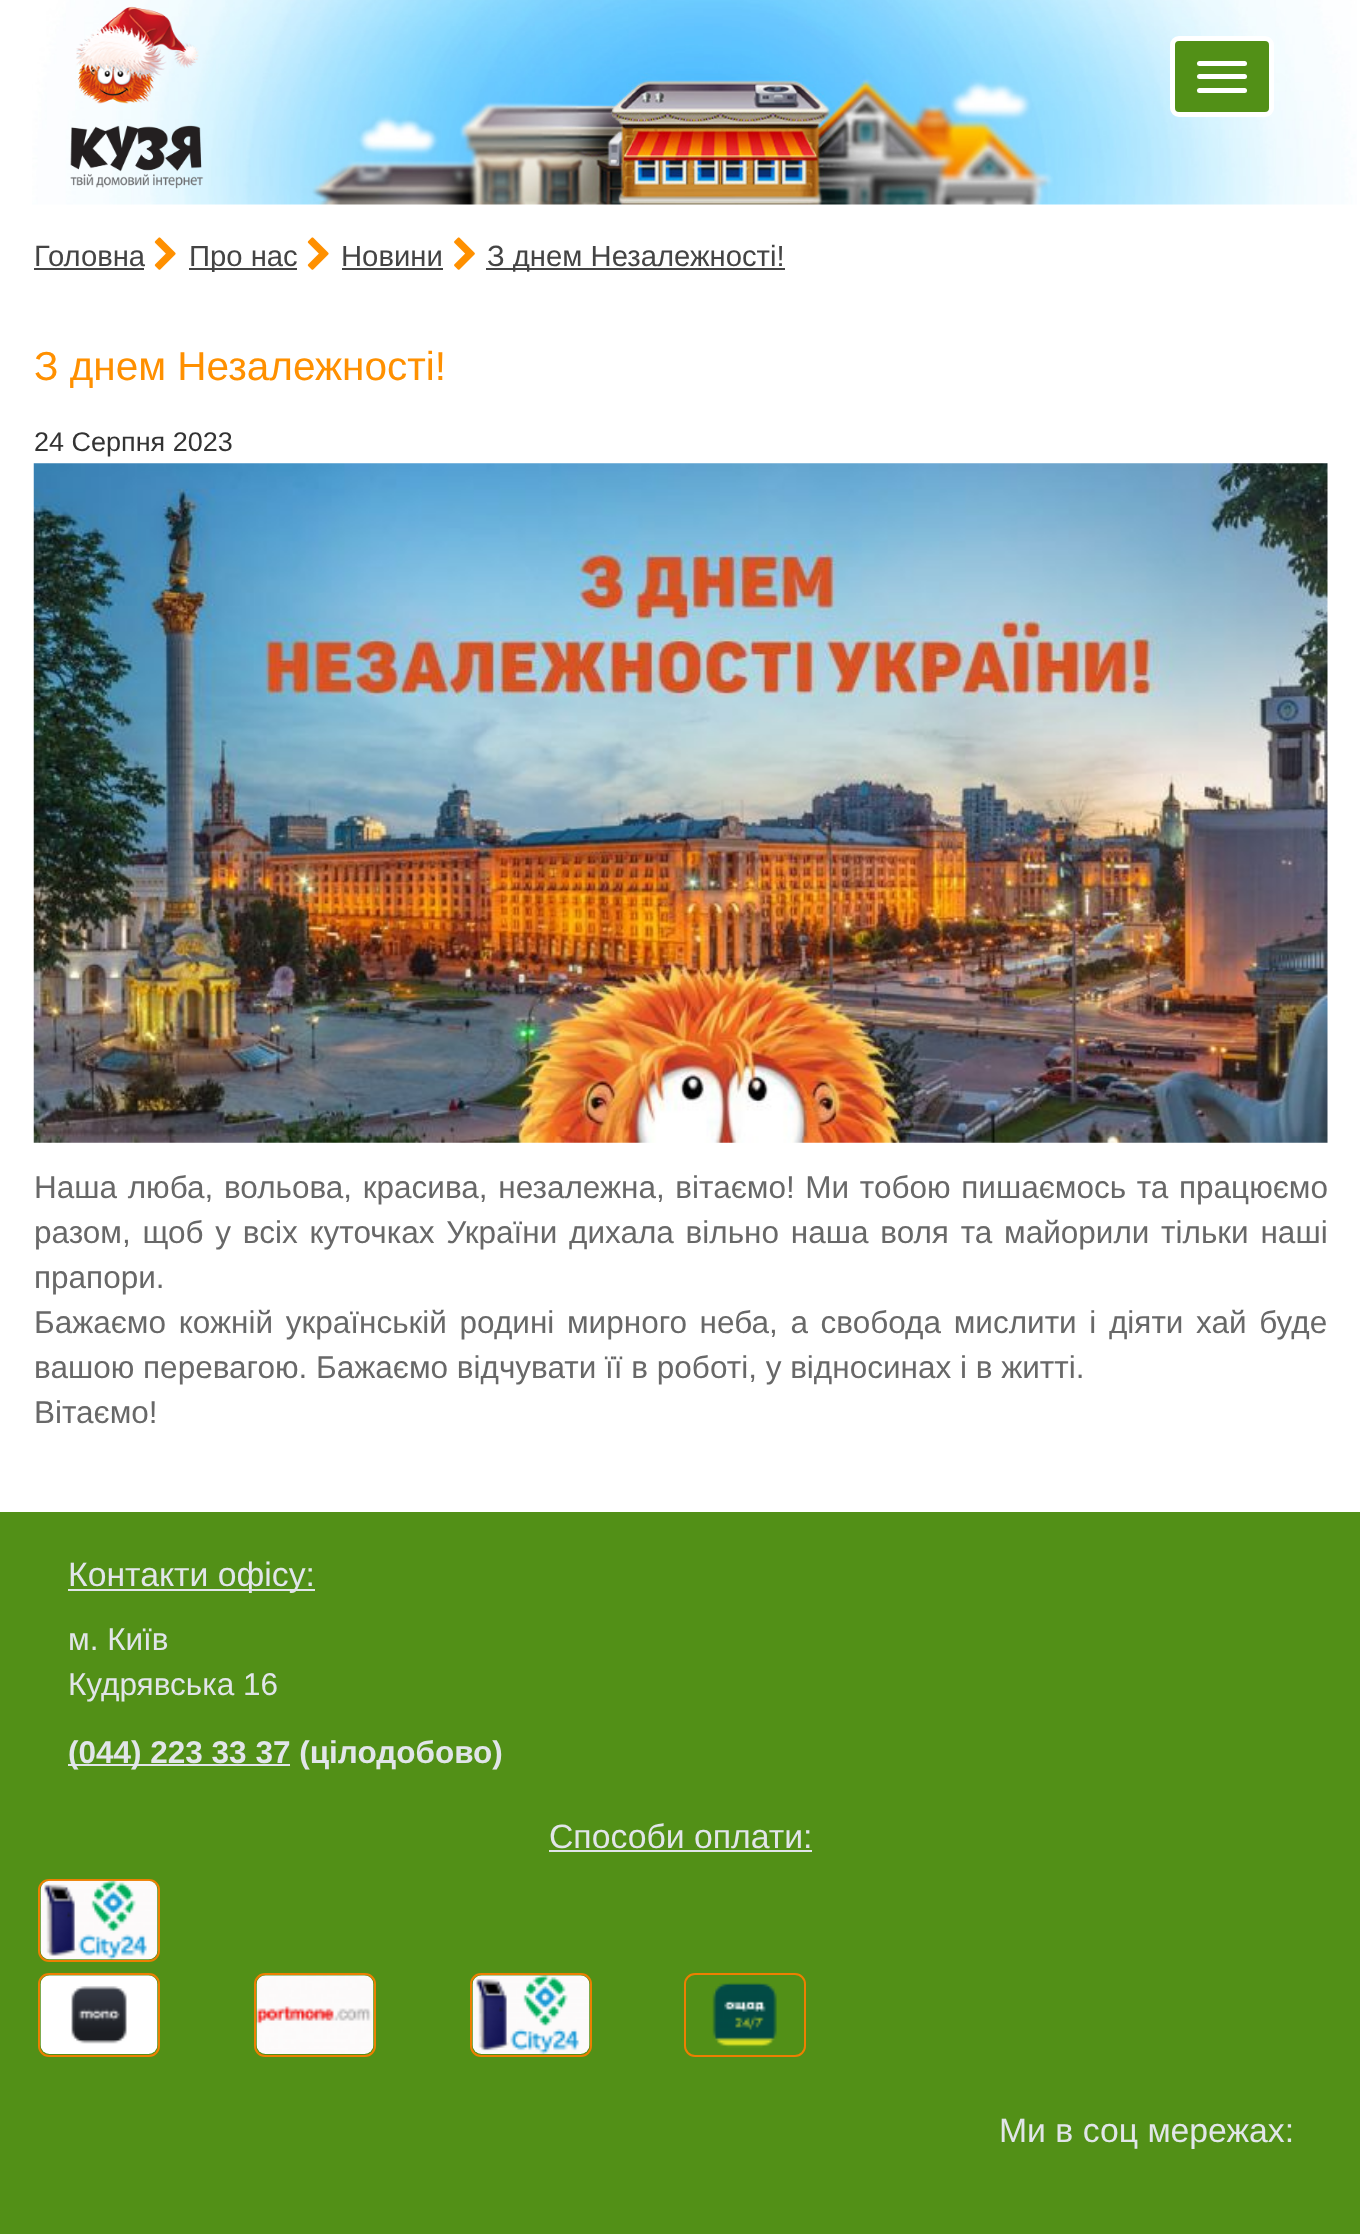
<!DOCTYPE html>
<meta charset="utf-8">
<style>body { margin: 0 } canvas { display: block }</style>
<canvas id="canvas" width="1360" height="2234"></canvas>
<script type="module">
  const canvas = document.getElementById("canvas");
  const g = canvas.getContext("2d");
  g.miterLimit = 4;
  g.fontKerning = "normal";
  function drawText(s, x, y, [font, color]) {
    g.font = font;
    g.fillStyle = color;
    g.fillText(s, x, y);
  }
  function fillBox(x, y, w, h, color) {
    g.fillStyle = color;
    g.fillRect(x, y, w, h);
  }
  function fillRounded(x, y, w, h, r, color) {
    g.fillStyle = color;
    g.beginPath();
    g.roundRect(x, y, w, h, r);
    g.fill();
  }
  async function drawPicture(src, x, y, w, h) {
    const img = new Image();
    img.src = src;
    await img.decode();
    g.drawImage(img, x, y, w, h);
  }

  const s1 = ["29.25px Liberation Sans", "#444444"];
  const s2 = ["40.5px Liberation Sans", "#FF9000"];
  const s3 = ["27px Liberation Sans", "#333333"];
  const s4 = ["31.5px Liberation Sans", "#686868"];
  const s5 = ["33.75px Liberation Sans", "#E1E5E9"];
  const s6 = ["31.5px Liberation Sans", "#E1E5E9"];
  const s7 = ["bold 31.5px Liberation Sans", "#E1E5E9"];

  fillBox(0, 0, 1360, 2234, "#FFFFFF");
  await drawPicture("pic1.png", 32, 0, 1325, 205);
  g.fillStyle = "#529017";
  g.beginPath();
  g.roundRect(1172.5, 38.5, 99, 76, 6.5);
  g.fill();
  g.strokeStyle = "#FFFFFF";
  g.lineWidth = 5;
  g.stroke();
  fillRounded(1197, 61, 50, 5, 2.5, "#FFFFFF");
  fillRounded(1197, 74, 50, 5, 2.5, "#FFFFFF");
  fillRounded(1197, 88, 50, 5, 2.5, "#FFFFFF");
  await drawPicture("pic2.png", 76, 6, 123, 98);
  await drawPicture("pic3.png", 70, 125, 134, 64);
  drawText("Головна", 34, 266, s1);
  fillBox(34, 268, 110, 2, "#444444");
  await drawPicture("pic4.png", 154, 237, 22, 33);
  fillBox(189, 268, 108, 2, "#444444");
  drawText("Про нас", 189, 266, s1);
  await drawPicture("pic4.png", 307, 237, 22, 33);
  drawText("Новини", 341, 266, s1);
  fillBox(342, 268, 101, 2, "#444444");
  await drawPicture("pic5.png", 454, 237, 21, 33);
  fillBox(486, 268, 299, 2, "#444444");
  drawText("З днем Незалежності!", 487, 266, s1);
  drawText("З днем Незалежності!", 34, 380, s2);
  drawText("24 Серпня 2023", 34, 451, s3);
  await drawPicture("pic6.png", 33, 463, 1295, 680);
  g.wordSpacing = "1.9px";
  drawText("Наша люба, вольова, красива, незалежна, вітаємо! Ми тобою пишаємось та працюємо", 34, 1198, s4);
  g.wordSpacing = "3px";
  drawText("разом, щоб у всіх куточках України дихала вільно наша воля та майорили тільки наші", 34, 1243, s4);
  g.wordSpacing = "0px";
  drawText("прапори.", 34, 1288, s4);
  g.wordSpacing = "3.9px";
  drawText("Бажаємо кожній українській родині мирного неба, а свобода мислити і діяти хай буде", 34, 1333, s4);
  g.wordSpacing = "0px";
  drawText("вашою перевагою. Бажаємо відчувати її в роботі, у відносинах і в житті.", 34, 1378, s4);
  drawText("Вітаємо!", 34, 1423, s4);
  fillBox(0, 1512, 1360, 722, "#529017");
  fillBox(68, 1589, 247, 2, "#E1E5E9");
  drawText("Контакти офісу:", 68, 1586, s5);
  drawText("м. Київ", 68, 1650, s6);
  drawText("Кудрявська 16", 68, 1695, s6);
  fillBox(68, 1764, 222, 2, "#E1E5E9");
  drawText("(044) 223 33 37 (цілодобово)", 68, 1763, s7);
  drawText("Способи оплати:", 549, 1848, s5);
  fillBox(549, 1850, 263, 2, "#E1E5E9");
  g.beginPath();
  g.roundRect(39, 1880, 120, 81, 10);
  g.strokeStyle = "#ED7F02";
  g.lineWidth = 2;
  g.stroke();
  await drawPicture("pic7.png", 40, 1880, 118, 80);
  g.beginPath();
  g.roundRect(39, 1974, 120, 82, 10);
  g.stroke();
  await drawPicture("pic8.png", 40, 1975, 118, 79);
  g.beginPath();
  g.roundRect(255, 1974, 120, 82, 10);
  g.stroke();
  await drawPicture("pic9.png", 256, 1975, 118, 79);
  g.beginPath();
  g.roundRect(471, 1974, 120, 82, 10);
  g.stroke();
  await drawPicture("pic10.png", 472, 1975, 118, 79);
  g.beginPath();
  g.roundRect(685, 1974, 120, 82, 10);
  g.stroke();
  await drawPicture("pic11.png", 712, 1982, 65, 66);
  drawText("Ми в соц мережах:", 999, 2142, s5);
</script>
